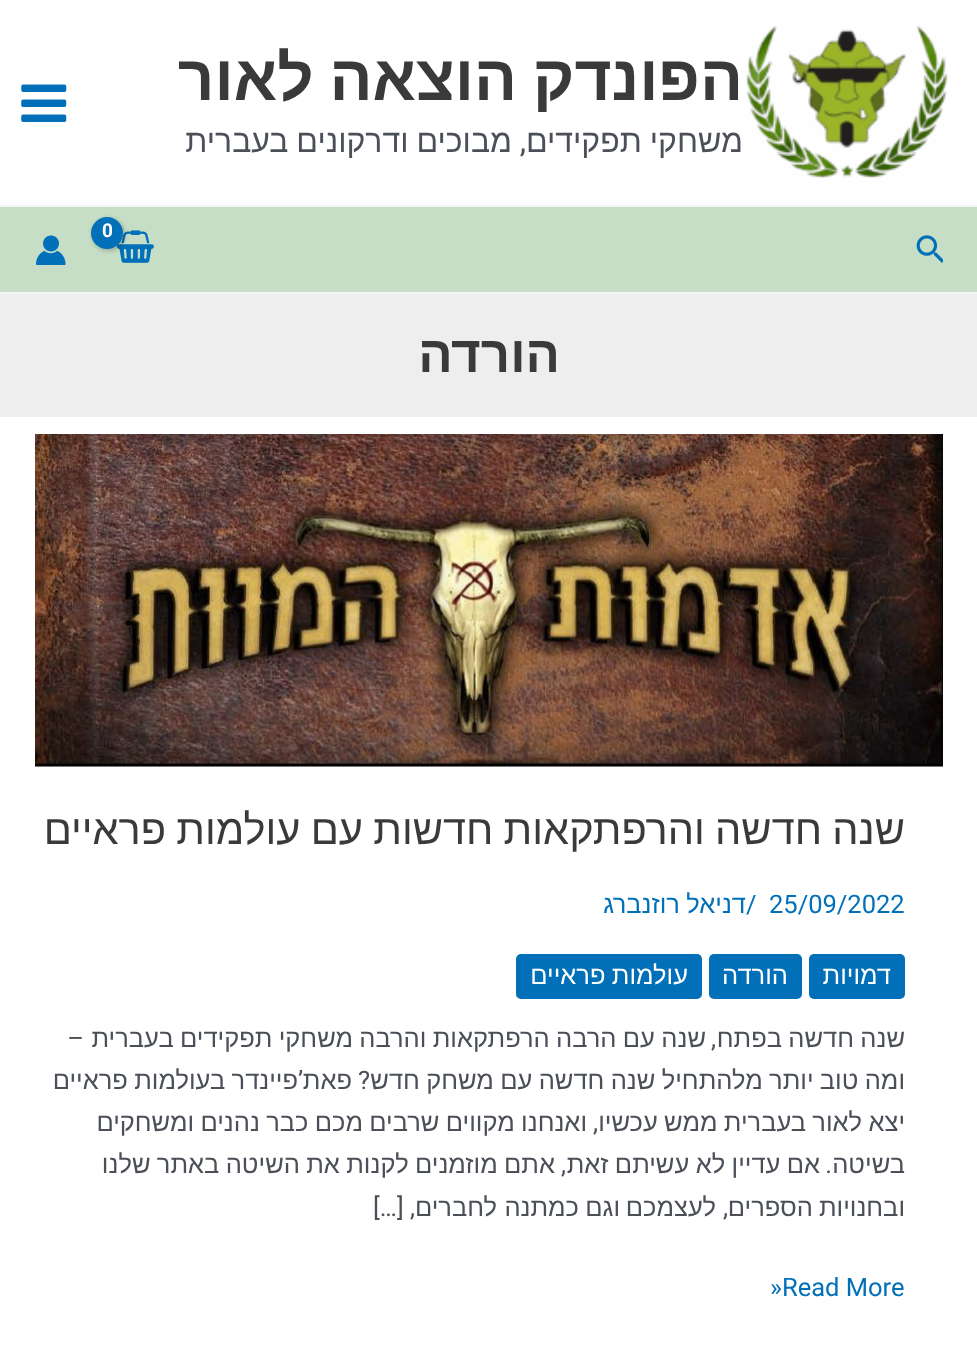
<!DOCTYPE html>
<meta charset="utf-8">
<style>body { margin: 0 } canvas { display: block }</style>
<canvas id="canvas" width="977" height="1359"></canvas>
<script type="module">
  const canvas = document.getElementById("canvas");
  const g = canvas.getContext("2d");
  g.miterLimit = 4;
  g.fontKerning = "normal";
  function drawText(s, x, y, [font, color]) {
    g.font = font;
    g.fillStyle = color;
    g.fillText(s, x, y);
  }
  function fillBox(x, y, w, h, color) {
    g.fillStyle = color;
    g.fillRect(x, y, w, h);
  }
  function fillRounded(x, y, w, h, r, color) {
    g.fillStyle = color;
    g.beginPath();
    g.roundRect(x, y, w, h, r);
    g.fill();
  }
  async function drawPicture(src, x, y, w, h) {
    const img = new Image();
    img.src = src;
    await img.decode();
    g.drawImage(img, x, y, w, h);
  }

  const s1 = ["bold 63.75px Liberation Sans", "#3A3A3A"];
  const s2 = ["32px Liberation Sans", "#4B4F58"];
  const s3 = ["32px Roboto", "#4B4F58"];
  const s4 = ["bold 19px Roboto", "#FFFFFF"];
  const s5 = ["bold 51px Liberation Sans", "#3A3A3A"];
  const s6 = ["41.5px Liberation Sans", "#3A3A3A"];
  const s7 = ["25.5px Roboto", "#0170B9"];
  const s8 = ["25.5px Liberation Sans", "#0170B9"];
  const s9 = ["25.5px Liberation Sans", "#FFFFFF"];
  const s10 = ["25.5px Liberation Sans", "#4B4F58"];
  const s11 = ["25.5px Roboto", "#4B4F58"];

  fillBox(0, 0, 977, 1359, "#FFFFFF");
  fillBox(0, 205, 977, 2, "#F2F5F7");
  await drawPicture("pic1.png", 746, 26, 202, 153);
  g.wordSpacing = "-2px";
  g.direction = "rtl";
  drawText("הפונדק הוצאה לאור", 743, 100, s1);
  g.wordSpacing = "-1px";
  drawText("משחקי תפקידים", 743, 152, s2);
  g.wordSpacing = "0px";
  drawText(",", 526, 152, s3);
  g.wordSpacing = "-1px";
  drawText("מבוכים ודרקונים בעברית", 512, 152, s2);
  await drawPicture("pic2.png", 21, 84, 46, 38);
  fillBox(0, 207, 977, 85, "#C5DEC5");
  fillBox(0, 292, 977, 2, "#F2F5F7");
  await drawPicture("pic3.png", 116, 230, 38, 33);
  g.fillStyle = "rgba(0, 0, 0, 0.3)";
  g.filter = "blur(2.5px)";
  g.beginPath();
  g.roundRect(93, 219, 31, 31, 15.5);
  g.fill();
  g.filter = "none";
  g.fillStyle = "#0170B9";
  g.beginPath();
  g.arc(107, 233, 16, 0, Math.PI * 2);
  g.fill();
  g.letterSpacing = "-1px";
  g.wordSpacing = "0px";
  g.direction = "ltr";
  drawText("0", 102, 237, s4);
  await drawPicture("pic4.png", 36, 235, 30, 30);
  await drawPicture("pic5.png", 916, 235, 27, 28);
  fillBox(0, 294, 977, 123, "#EEEEEE");
  g.letterSpacing = "0px";
  g.direction = "rtl";
  drawText("הורדה", 560, 372, s5);
  await drawPicture("pic6.png", 35, 434, 908, 333);
  g.wordSpacing = "-1.25px";
  drawText("שנה חדשה והרפתקאות חדשות עם עולמות פראיים", 905, 844, s6);
  g.wordSpacing = "0px";
  g.direction = "ltr";
  drawText("25/09/2022", 769, 913, s7);
  drawText("/", 746, 913, s7);
  g.wordSpacing = "-0.75px";
  g.direction = "rtl";
  drawText("דניאל רוזנברג", 746, 913, s8);
  fillRounded(809, 954, 96, 45, 5, "#0170B9");
  g.wordSpacing = "0px";
  drawText("דמויות", 891, 984, s9);
  fillRounded(709, 954, 93, 45, 5, "#0170B9");
  drawText("הורדה", 788, 984, s9);
  fillRounded(516, 954, 186, 45, 5, "#0170B9");
  g.wordSpacing = "-0.75px";
  drawText("עולמות פראיים", 688, 984, s9);
  drawText("שנה חדשה בפתח", 905, 1047, s10);
  drawText("שנה עם הרבה הרפתקאות והרבה משחקי תפקידים בעברית", 706, 1047, s10);
  g.wordSpacing = "0px";
  drawText("–", 84, 1047, s11);
  drawText(",", 716, 1047, s11);
  g.wordSpacing = "-0.75px";
  drawText("ומה טוב יותר מלהתחיל שנה חדשה עם משחק חדש", 905, 1089, s10);
  g.wordSpacing = "0px";
  drawText("?", 370, 1089, s11);
  drawText("פאת", 352, 1089, s10);
  drawText("’", 303, 1089, s11);
  g.wordSpacing = "-0.75px";
  drawText("פיינדר בעולמות פראיים", 298, 1089, s10);
  drawText("יצא לאור בעברית ממש עכשיו", 905, 1131, s10);
  g.wordSpacing = "0px";
  drawText(",", 598, 1131, s11);
  g.wordSpacing = "-0.75px";
  drawText("ואנחנו מקווים שרבים מכם כבר נהנים ומשחקים", 587, 1131, s10);
  g.wordSpacing = "0px";
  drawText("בשיטה", 905, 1173, s10);
  drawText(".", 832, 1173, s11);
  g.wordSpacing = "-0.75px";
  drawText("אם עדיין לא עשיתם זאת", 820, 1173, s10);
  g.wordSpacing = "0px";
  drawText(",", 566, 1173, s11);
  g.wordSpacing = "-0.75px";
  drawText("אתם מוזמנים לקנות את השיטה באתר שלנו", 555, 1173, s10);
  g.wordSpacing = "0px";
  drawText("ובחנויות", 905, 1216, s10);
  drawText("הספרים", 813, 1216, s10);
  drawText(",", 728, 1216, s11);
  drawText("לעצמכם", 716, 1216, s10);
  drawText("וגם", 620, 1216, s10);
  drawText("כמתנה", 579, 1216, s10);
  drawText("לחברים", 497, 1216, s10);
  drawText(", […]", 415, 1216, s11);
  g.direction = "ltr";
  drawText("»Read More", 770, 1296, s7);
</script>
